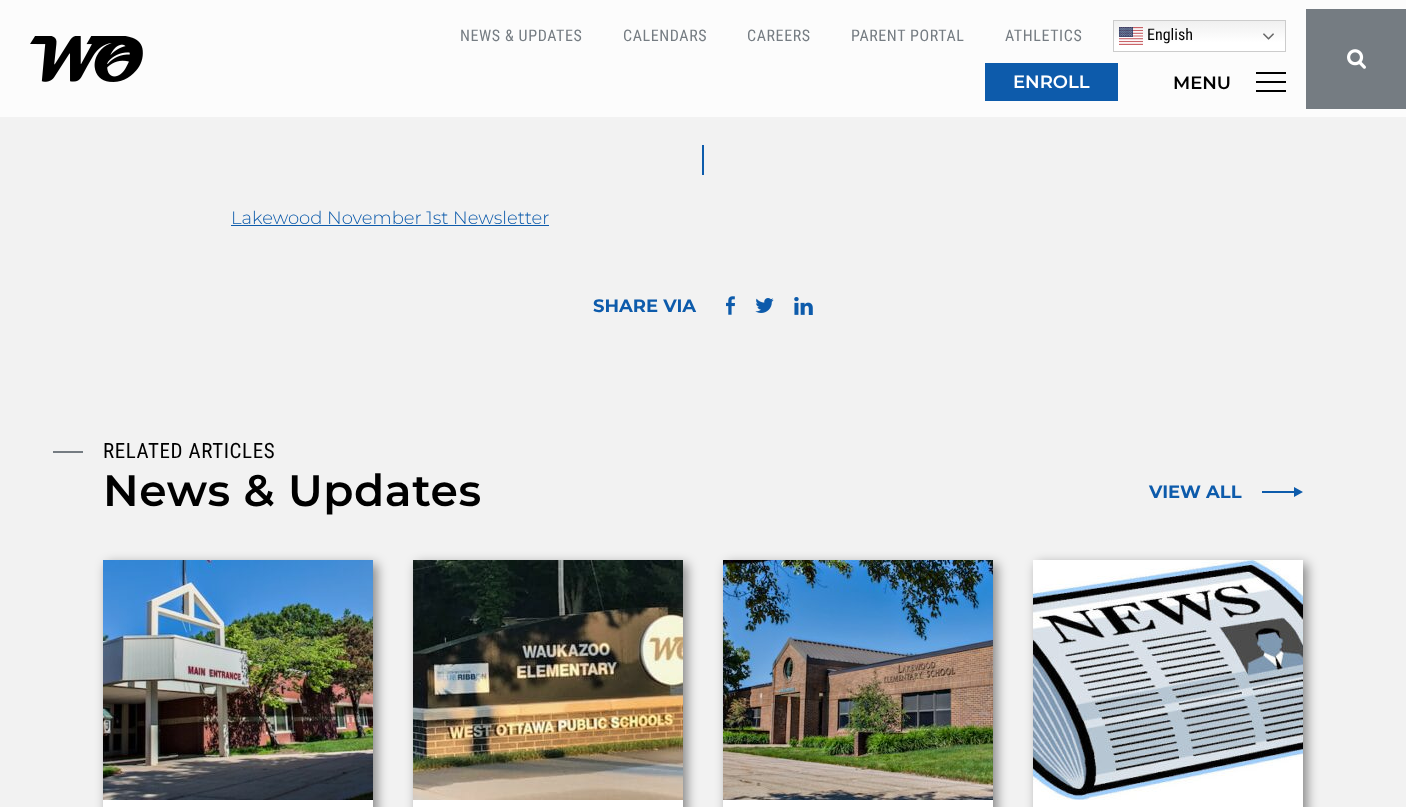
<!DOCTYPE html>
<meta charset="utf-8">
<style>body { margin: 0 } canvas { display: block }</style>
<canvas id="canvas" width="1406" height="807"></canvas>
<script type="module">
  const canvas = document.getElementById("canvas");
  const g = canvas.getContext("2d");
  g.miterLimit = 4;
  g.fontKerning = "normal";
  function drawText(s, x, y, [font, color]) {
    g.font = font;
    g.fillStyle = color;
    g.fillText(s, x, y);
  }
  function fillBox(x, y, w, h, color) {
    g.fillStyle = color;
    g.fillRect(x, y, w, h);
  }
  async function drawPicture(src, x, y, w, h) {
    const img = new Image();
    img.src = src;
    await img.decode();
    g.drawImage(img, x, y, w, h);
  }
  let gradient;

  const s1 = ["16px Roboto Condensed", "#757C82"];
  const s2 = ["16px Roboto Condensed", "#000000"];
  const s3 = ["600 18px Montserrat", "#FFFFFF"];
  const s4 = ["600 18px Montserrat", "#000000"];
  const s5 = ["300 18px Montserrat", "#0D5BAB"];
  const s6 = ["bold 18px Montserrat", "#0D5BAB"];
  const s7 = ["21px Roboto Condensed", "#000000"];
  const s8 = ["600 44px Montserrat", "#000000"];

  fillBox(0, 0, 1406, 807, "#F2F2F2");
  fillBox(0, 0, 1406, 117, "#FCFCFC");
  await drawPicture("pic1.png", 30, 36, 113, 46);
  g.letterSpacing = "0.6px";
  drawText("NEWS & UPDATES", 460, 41, s1);
  drawText("CALENDARS", 623, 41, s1);
  drawText("CAREERS", 747, 41, s1);
  drawText("PARENT PORTAL", 851, 41, s1);
  drawText("ATHLETICS", 1005, 41, s1);
  gradient = g.createLinearGradient(1200, 20, 1200, 52);
  gradient.addColorStop(0, "#EFEFEF");
  gradient.addColorStop(0.7, "#FFFFFF");
  g.fillStyle = gradient;
  g.fillRect(1114, 21, 171, 30);
  g.strokeStyle = "#CCCCCC";
  g.strokeRect(1113.5, 20.5, 172, 31);
  await drawPicture("pic2.png", 1119, 27, 24, 18);
  g.letterSpacing = "0px";
  drawText("English", 1147, 40, s2);
  await drawPicture("pic3.png", 1263, 33, 11, 7);
  fillBox(985, 63, 133, 38, "#0D5BAB");
  drawText("ENROLL", 1013, 88, s3);
  drawText("MENU", 1173, 89, s4);
  fillBox(1256, 72, 30, 2, "#000000");
  fillBox(1256, 81, 30, 2, "#000000");
  fillBox(1256, 90, 30, 2, "#000000");
  fillBox(1306, 9, 100, 100, "#757C82");
  await drawPicture("pic4.png", 1347, 49, 19, 20);
  fillBox(702, 145, 2, 30, "#0D5BAB");
  drawText("Lakewood November 1st Newsletter", 231, 224, s5);
  fillBox(231, 225, 318, 1, "#0D5BAB");
  drawText("SHARE VIA", 593, 312, s6);
  await drawPicture("pic5.png", 726, 296, 9, 19);
  await drawPicture("pic6.png", 755, 298, 19, 15);
  await drawPicture("pic7.png", 794, 297, 19, 18);
  fillBox(53, 451, 30, 2, "#757C82");
  g.letterSpacing = "0.6px";
  drawText("RELATED ARTICLES", 103, 458, s7);
  drawText("News & Updates", 103, 506, s8);
  g.letterSpacing = "0px";
  drawText("VIEW ALL", 1149, 498, s6);
  g.beginPath();
  g.moveTo(1262, 493);
  g.lineTo(1294, 493);
  g.lineTo(1294, 497);
  g.lineTo(1303, 492);
  g.lineTo(1294, 487);
  g.lineTo(1294, 491);
  g.lineTo(1262, 491);
  g.closePath();
  g.fill();
  g.fillStyle = "rgba(0, 0, 0, 0.45)";
  g.filter = "blur(6px)";
  g.beginPath();
  g.rect(107, 564, 270, 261);
  g.fill();
  g.filter = "none";
  fillBox(103, 800, 270, 7, "#FFFFFF");
  await drawPicture("pic8.png", 103, 560, 270, 240);
  g.fillStyle = "rgba(0, 0, 0, 0.45)";
  g.filter = "blur(6px)";
  g.beginPath();
  g.rect(417, 564, 270, 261);
  g.fill();
  g.filter = "none";
  fillBox(413, 800, 270, 7, "#FFFFFF");
  await drawPicture("pic9.png", 413, 560, 270, 240);
  g.fillStyle = "rgba(0, 0, 0, 0.45)";
  g.filter = "blur(6px)";
  g.beginPath();
  g.rect(727, 564, 270, 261);
  g.fill();
  g.filter = "none";
  fillBox(723, 800, 270, 7, "#FFFFFF");
  await drawPicture("pic10.png", 723, 560, 270, 240);
  g.fillStyle = "rgba(0, 0, 0, 0.45)";
  g.filter = "blur(6px)";
  g.beginPath();
  g.rect(1037, 564, 270, 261);
  g.fill();
  g.filter = "none";
  fillBox(1033, 800, 270, 7, "#FFFFFF");
  await drawPicture("pic11.png", 1033, 560, 270, 240);
</script>
